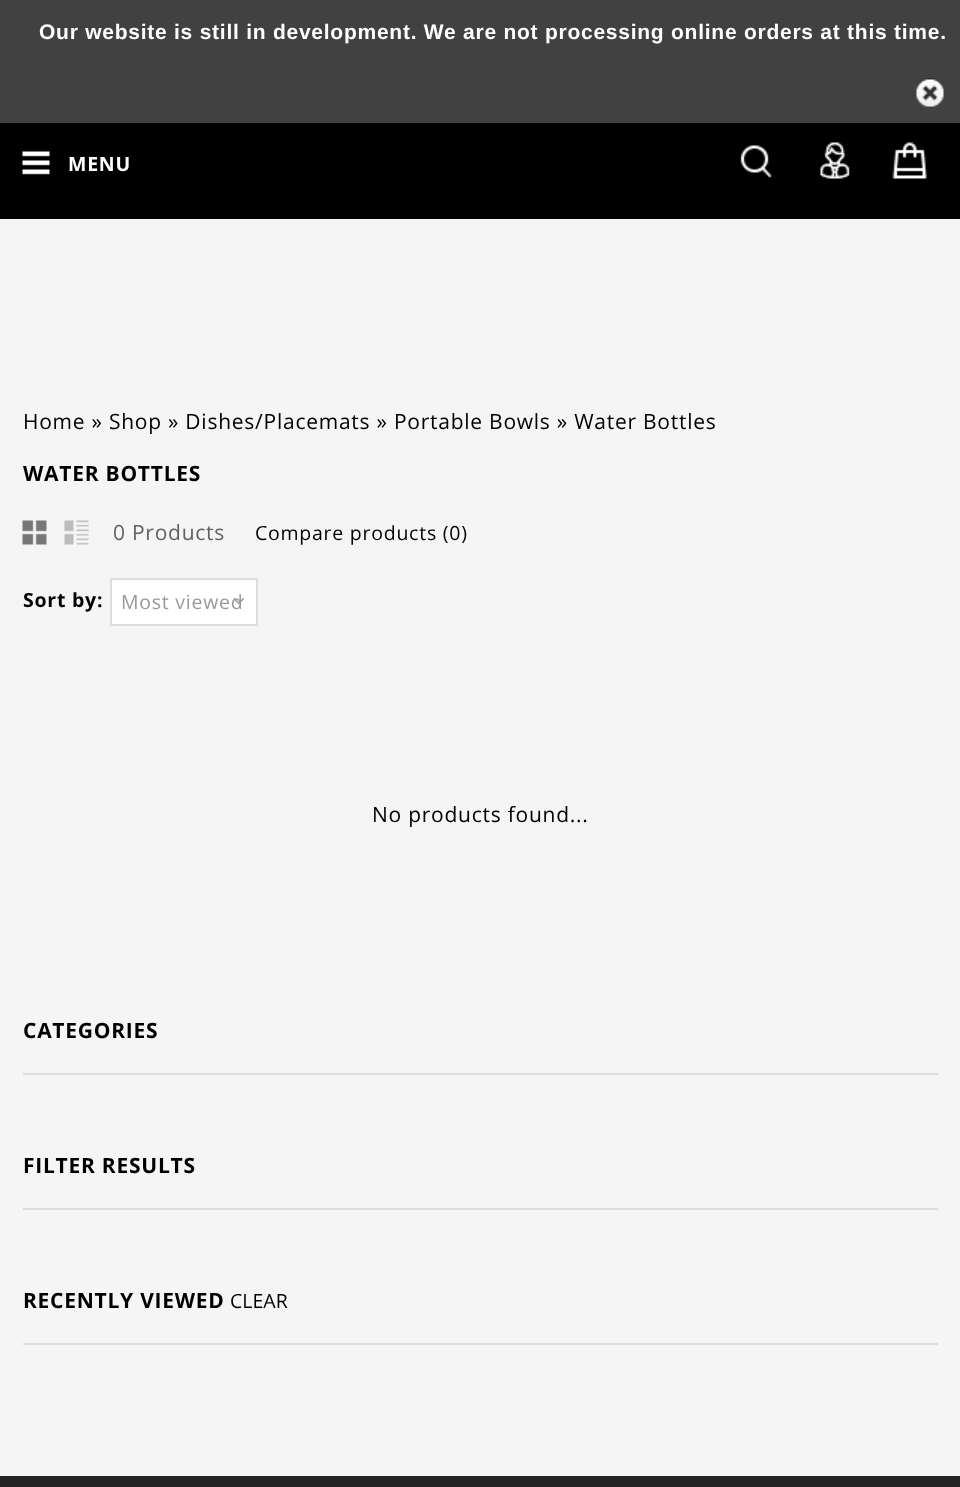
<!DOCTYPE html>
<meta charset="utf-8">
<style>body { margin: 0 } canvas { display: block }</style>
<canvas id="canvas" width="960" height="1487"></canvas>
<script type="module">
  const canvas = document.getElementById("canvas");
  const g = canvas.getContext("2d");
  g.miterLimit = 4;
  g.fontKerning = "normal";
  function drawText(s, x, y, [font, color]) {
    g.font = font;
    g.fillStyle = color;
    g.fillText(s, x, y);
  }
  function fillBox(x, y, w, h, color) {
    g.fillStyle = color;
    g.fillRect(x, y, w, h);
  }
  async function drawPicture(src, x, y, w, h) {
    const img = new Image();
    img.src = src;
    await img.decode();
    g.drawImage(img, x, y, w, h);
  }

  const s1 = ["bold 21px Liberation Sans", "#FFFFFF"];
  const s2 = ["bold 19.5px Open Sans", "#FFFFFF"];
  const s3 = ["21px Open Sans", "#000000"];
  const s4 = ["bold 21px Open Sans", "#000000"];
  const s5 = ["21px Open Sans", "#626262"];
  const s6 = ["19.5px Open Sans", "#000000"];
  const s7 = ["bold 19.5px Open Sans", "#000000"];
  const s8 = ["19.5px Open Sans", "#999999"];

  fillBox(0, 0, 960, 1487, "#242424");
  fillBox(0, 0, 960, 123, "#414141");
  g.letterSpacing = "0.75px";
  drawText("Our website is still in development. We are not processing online orders at this time.", 39, 39, s1);
  await drawPicture("pic1.png", 916, 78, 28, 29);
  fillBox(0, 123, 960, 96, "#000000");
  await drawPicture("pic2.png", 22, 151, 28, 24);
  drawText("MENU", 68, 171, s2);
  await drawPicture("pic3.png", 740, 145, 32, 33);
  await drawPicture("pic4.png", 820, 142, 30, 37);
  await drawPicture("pic5.png", 892, 142, 35, 37);
  fillBox(0, 219, 960, 1257, "#F5F5F5");
  drawText("Home » Shop » Dishes/Placemats » Portable Bowls » Water Bottles", 23, 429, s3);
  drawText("WATER BOTTLES", 23, 481, s4);
  await drawPicture("pic6.png", 22, 520, 25, 25);
  await drawPicture("pic7.png", 64, 520, 25, 25);
  drawText("0 Products", 113, 540, s5);
  drawText("Compare products (0)", 255, 540, s6);
  drawText("Sort by:", 23, 607, s7);
  g.fillStyle = "#FFFFFF";
  g.beginPath();
  g.rect(111, 579, 146, 46);
  g.fill();
  g.strokeStyle = "#DDDDDD";
  g.lineWidth = 2;
  g.stroke();
  drawText("Most viewed", 121, 609, s8);
  await drawPicture("pic8.png", 233, 598, 12, 7);
  drawText("No products found...", 372, 822, s3);
  fillBox(23, 1073, 915, 2, "#DDDDDD");
  drawText("CATEGORIES", 23, 1038, s4);
  fillBox(23, 1208, 915, 2, "#DDDDDD");
  drawText("FILTER RESULTS", 23, 1173, s4);
  fillBox(23, 1343, 915, 2, "#DDDDDD");
  drawText("RECENTLY VIEWED", 23, 1308, s4);
  g.letterSpacing = "0px";
  drawText("CLEAR", 230, 1308, s6);
</script>
